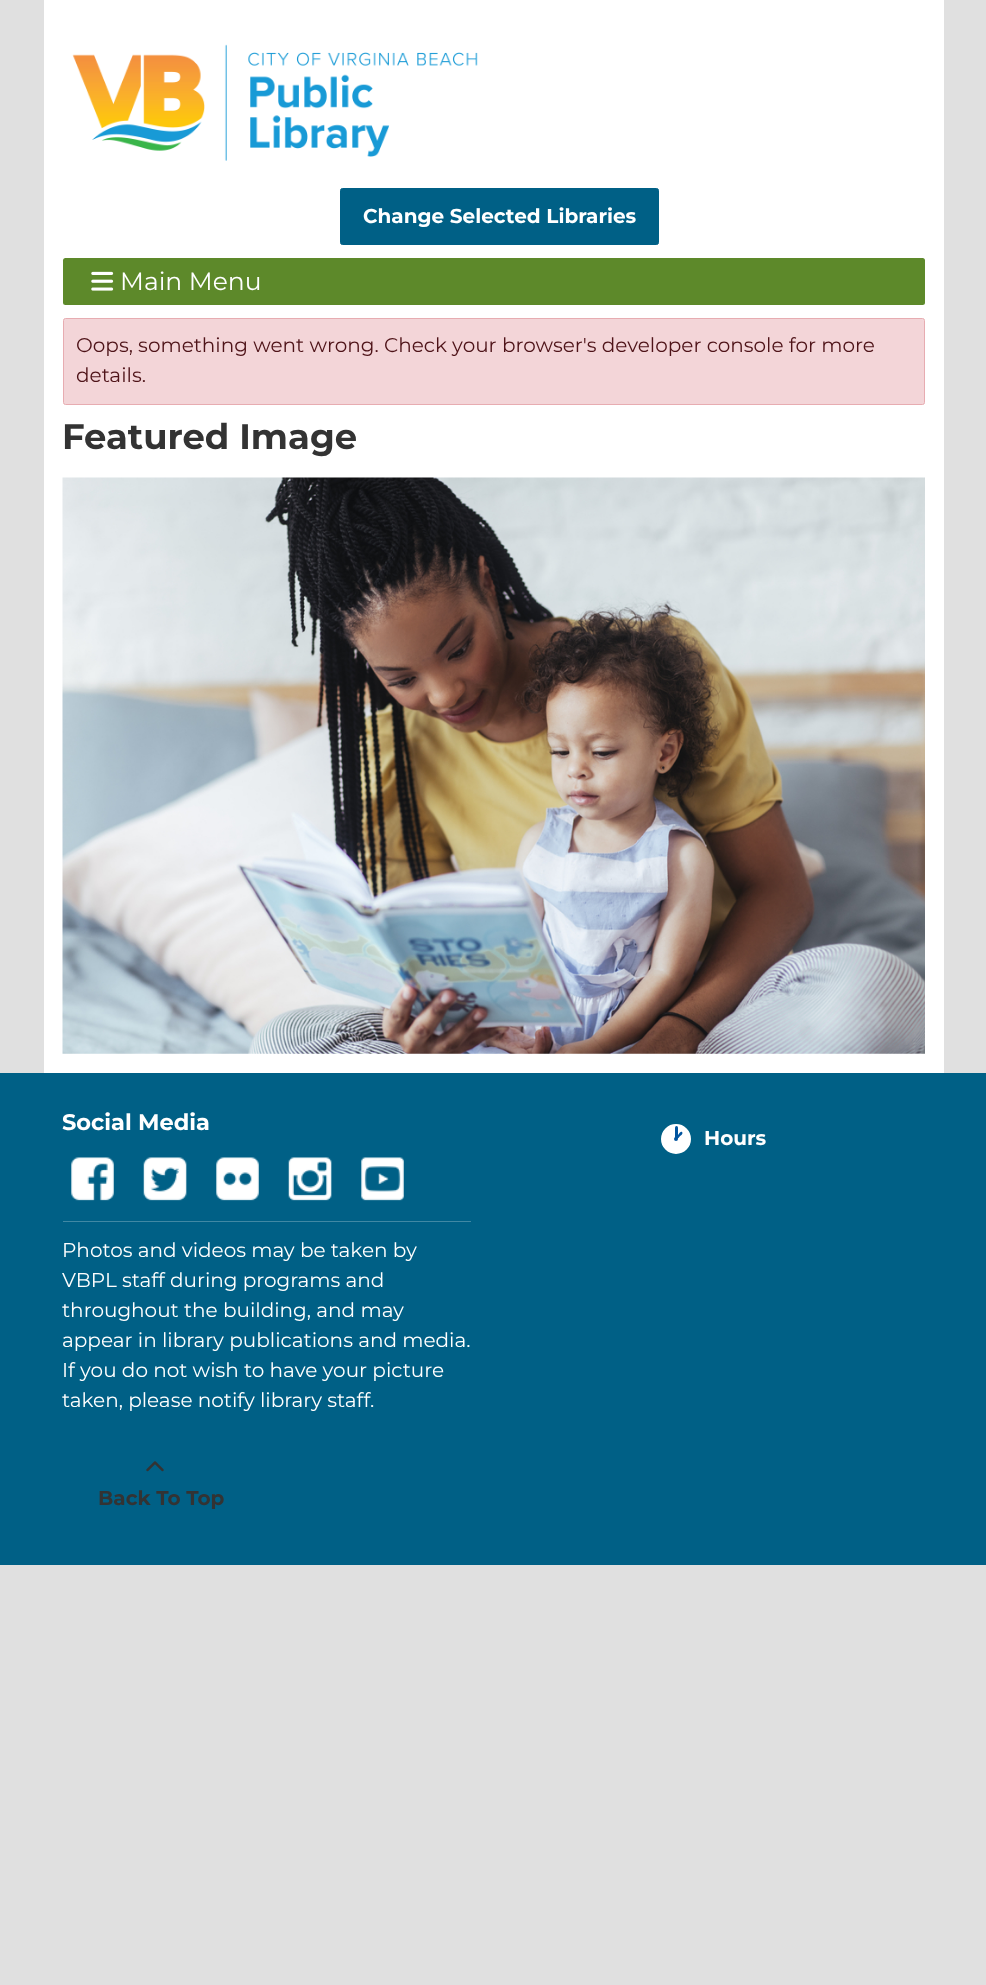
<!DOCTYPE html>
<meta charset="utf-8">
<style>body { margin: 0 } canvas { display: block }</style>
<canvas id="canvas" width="986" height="1985"></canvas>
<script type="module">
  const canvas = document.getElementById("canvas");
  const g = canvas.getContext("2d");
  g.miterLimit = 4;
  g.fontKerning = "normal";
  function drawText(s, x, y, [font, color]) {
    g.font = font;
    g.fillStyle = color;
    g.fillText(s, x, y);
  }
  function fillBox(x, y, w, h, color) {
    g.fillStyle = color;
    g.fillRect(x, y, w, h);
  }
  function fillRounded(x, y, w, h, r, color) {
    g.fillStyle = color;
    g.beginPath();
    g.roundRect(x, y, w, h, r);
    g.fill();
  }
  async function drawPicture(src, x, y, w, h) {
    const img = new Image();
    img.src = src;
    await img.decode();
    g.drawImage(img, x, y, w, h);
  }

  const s1 = ["bold 20px Montserrat", "#FFFFFF"];
  const s2 = ["25px Montserrat", "#FFFFFF"];
  const s3 = ["20px Montserrat", "#4E1318"];
  const s4 = ["bold 35.4px Montserrat", "#333333"];
  const s5 = ["bold 22.5px Montserrat", "#FFFFFF"];
  const s6 = ["20px Montserrat", "#FFFFFF"];
  const s7 = ["bold 20px Montserrat", "#333333"];

  fillBox(0, 0, 986, 1985, "#E0E0E0");
  fillBox(44, 0, 900, 1073, "#FFFFFF");
  await drawPicture("pic1.png", 72, 44, 406, 117);
  g.fillStyle = "#006086";
  g.beginPath();
  g.roundRect(340.5, 188.5, 318, 56, 2);
  g.fill();
  g.strokeStyle = "#006086";
  g.stroke();
  drawText("Change Selected Libraries", 363, 223, s1);
  fillRounded(63, 258, 862, 47, 2.5, "#5D892A");
  await drawPicture("pic2.png", 91, 271, 23, 20);
  drawText("Main Menu", 120, 290, s2);
  g.fillStyle = "#F3D5D8";
  g.beginPath();
  g.roundRect(63.5, 318.5, 861, 86, 2);
  g.fill();
  g.strokeStyle = "#E7ACB1";
  g.stroke();
  drawText("Oops, something went wrong. Check your browser's developer console for more", 76, 352, s3);
  drawText("details.", 76, 382, s3);
  drawText("Featured Image", 62, 449, s4);
  await drawPicture("pic3.png", 62, 477, 863, 577);
  fillBox(0, 1073, 986, 492, "#006086");
  drawText("Social Media", 62, 1130, s5);
  await drawPicture("pic4.png", 71, 1157, 43, 44);
  await drawPicture("pic5.png", 143, 1157, 44, 44);
  await drawPicture("pic6.png", 216, 1157, 43, 44);
  await drawPicture("pic7.png", 288, 1157, 44, 44);
  await drawPicture("pic8.png", 361, 1157, 43, 44);
  fillBox(63, 1221, 408, 1, "#4088A4");
  drawText("Photos and videos may be taken by", 62, 1257, s6);
  drawText("VBPL staff during programs and", 62, 1287, s6);
  drawText("throughout the building, and may", 62, 1317, s6);
  drawText("appear in library publications and media.", 62, 1347, s6);
  drawText("If you do not wish to have your picture", 62, 1377, s6);
  drawText("taken, please notify library staff.", 62, 1407, s6);
  g.fillStyle = "#00549F";
  g.beginPath();
  g.arc(676, 1139, 8.5, 0, Math.PI * 2);
  g.fill();
  g.strokeStyle = "#FFFFFF";
  g.lineWidth = 13;
  g.stroke();
  fillRounded(675, 1126, 3, 13, 1.5, "#00549F");
  g.beginPath();
  g.moveTo(682, 1132);
  g.bezierCurveTo(683.5, 1133.5, 681, 1135.5, 680, 1136);
  g.bezierCurveTo(679.5, 1137, 677.5, 1139.5, 676, 1138.5);
  g.bezierCurveTo(674.5, 1137, 677.5, 1135, 678.5, 1134.5);
  g.bezierCurveTo(679, 1133.5, 681, 1131, 682, 1132);
  g.closePath();
  g.fill();
  drawText("Hours", 704, 1145, s1);
  await drawPicture("pic9.png", 146, 1461, 18, 11);
  drawText("Back To Top", 98, 1505, s7);
</script>
